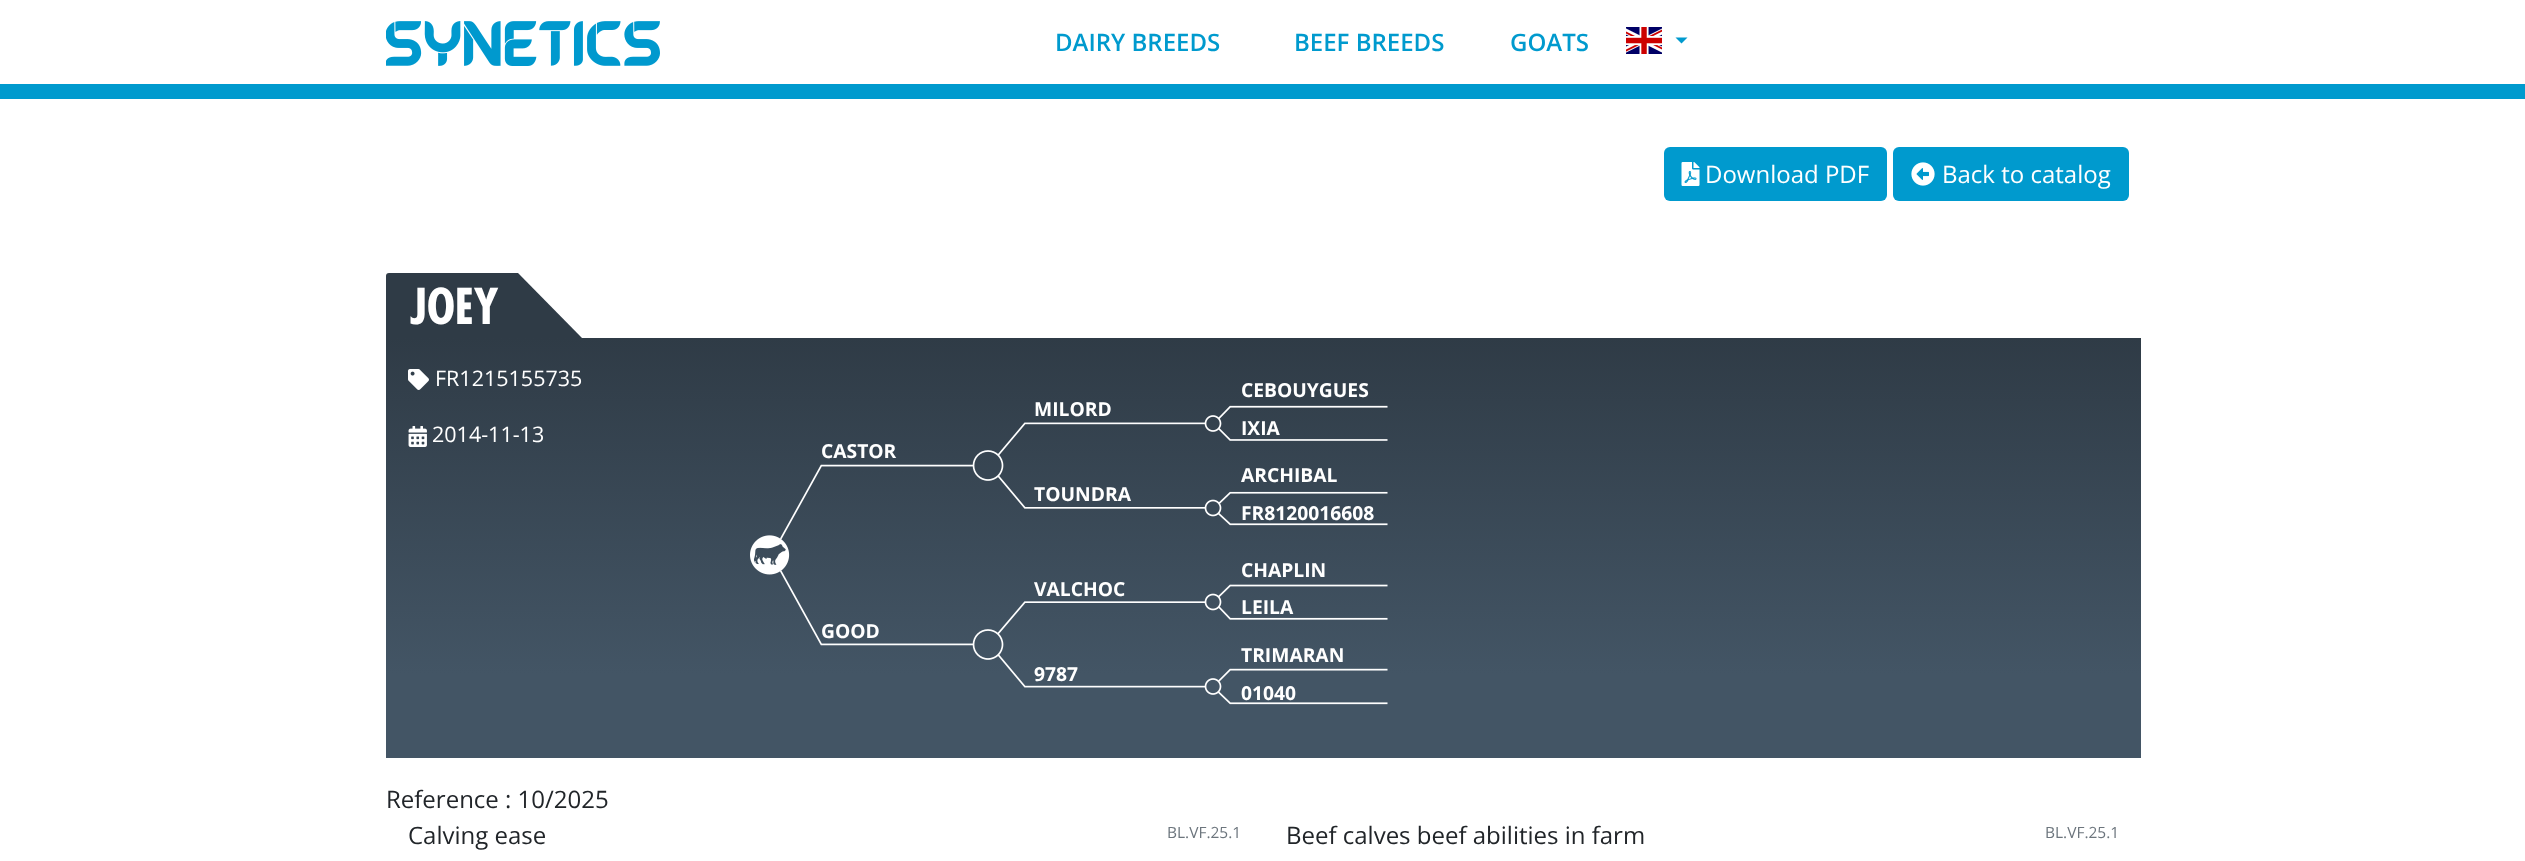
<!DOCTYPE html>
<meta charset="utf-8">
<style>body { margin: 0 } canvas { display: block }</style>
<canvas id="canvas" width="2525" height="861"></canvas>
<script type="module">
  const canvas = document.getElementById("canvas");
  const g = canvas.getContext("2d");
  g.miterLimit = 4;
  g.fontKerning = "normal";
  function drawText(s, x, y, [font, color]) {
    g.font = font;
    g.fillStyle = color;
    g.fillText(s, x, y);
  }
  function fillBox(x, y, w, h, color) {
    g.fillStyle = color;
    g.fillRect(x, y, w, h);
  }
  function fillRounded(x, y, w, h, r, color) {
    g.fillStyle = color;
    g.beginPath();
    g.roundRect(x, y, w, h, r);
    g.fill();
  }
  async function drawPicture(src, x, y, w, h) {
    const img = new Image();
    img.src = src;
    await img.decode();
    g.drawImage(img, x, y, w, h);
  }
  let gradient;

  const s1 = ["600 24px Open Sans", "#009ACE"];
  const s2 = ["24px Open Sans", "#FFFFFF"];
  const s3 = ["bold 48px Futura", "#FFFFFF"];
  const s4 = ["21.5px Open Sans", "#FFFFFF"];
  const s5 = ["bold 19.25px Open Sans", "#FFFFFF"];
  const s6 = ["24px Open Sans", "#212529"];
  const s7 = ["15.5px Open Sans", "#6C757D"];

  fillBox(0, 0, 2525, 861, "#FFFFFF");
  fillBox(0, 84, 2525, 15, "#009ACE");
  await drawPicture("pic1.png", 386, 21, 274, 45);
  drawText("DAIRY BREEDS", 1055, 51, s1);
  drawText("BEEF BREEDS", 1294, 51, s1);
  drawText("GOATS", 1510, 51, s1);
  await drawPicture("pic2.png", 1626, 27, 36, 27);
  g.beginPath();
  g.moveTo(1675.5, 37.5);
  g.lineTo(1687.5, 37.5);
  g.lineTo(1681.5, 43.5);
  g.closePath();
  g.fill();
  fillRounded(1664, 147, 223, 54, 6, "#009ACE");
  await drawPicture("pic3.png", 1681, 162, 19, 24);
  drawText("Download PDF", 1705, 183, s2);
  fillRounded(1893, 147, 236, 54, 6, "#009ACE");
  await drawPicture("pic4.png", 1911, 162, 24, 24);
  drawText("Back to catalog", 1942, 183, s2);
  g.fillStyle = "#2F3B46";
  g.beginPath();
  g.roundRect(386, 273, 196, 65, [3, 3, 0, 0]);
  g.fill();
  drawText("JOEY", 410, 324, s3);
  g.beginPath();
  g.moveTo(582, 273);
  g.lineTo(582, 338);
  g.lineTo(518, 273);
  g.closePath();
  g.fill();
  gradient = g.createLinearGradient(1263, 337, 1263, 758);
  gradient.addColorStop(0, "#2F3B46");
  gradient.addColorStop(0.8, "#435565");
  g.fillStyle = gradient;
  g.fillRect(386, 338, 1755, 420);
  await drawPicture("pic5.png", 408, 369, 21, 21);
  drawText("FR1215155735", 435, 386, s4);
  await drawPicture("pic6.png", 408, 426, 19, 21);
  drawText("2014-11-13", 432, 442, s4);
  await drawPicture("pic7.png", 750, 405, 638, 300);
  drawText("CASTOR", 821, 458, s5);
  drawText("MILORD", 1034, 416, s5);
  drawText("CEBOUYGUES", 1241, 397, s5);
  drawText("IXIA", 1241, 435, s5);
  drawText("TOUNDRA", 1034, 501, s5);
  drawText("ARCHIBAL", 1241, 482, s5);
  drawText("FR8120016608", 1241, 520, s5);
  drawText("GOOD", 821, 638, s5);
  drawText("VALCHOC", 1034, 596, s5);
  drawText("CHAPLIN", 1241, 577, s5);
  drawText("LEILA", 1241, 614, s5);
  drawText("9787", 1034, 681, s5);
  drawText("TRIMARAN", 1241, 662, s5);
  drawText("01040", 1241, 700, s5);
  drawText("Reference : 10/2025", 386, 808, s6);
  drawText("Calving ease", 408, 844, s6);
  drawText("BL.VF.25.1", 1167, 838, s7);
  drawText("Beef calves beef abilities in farm", 1286, 844, s6);
  drawText("BL.VF.25.1", 2045, 838, s7);
</script>
